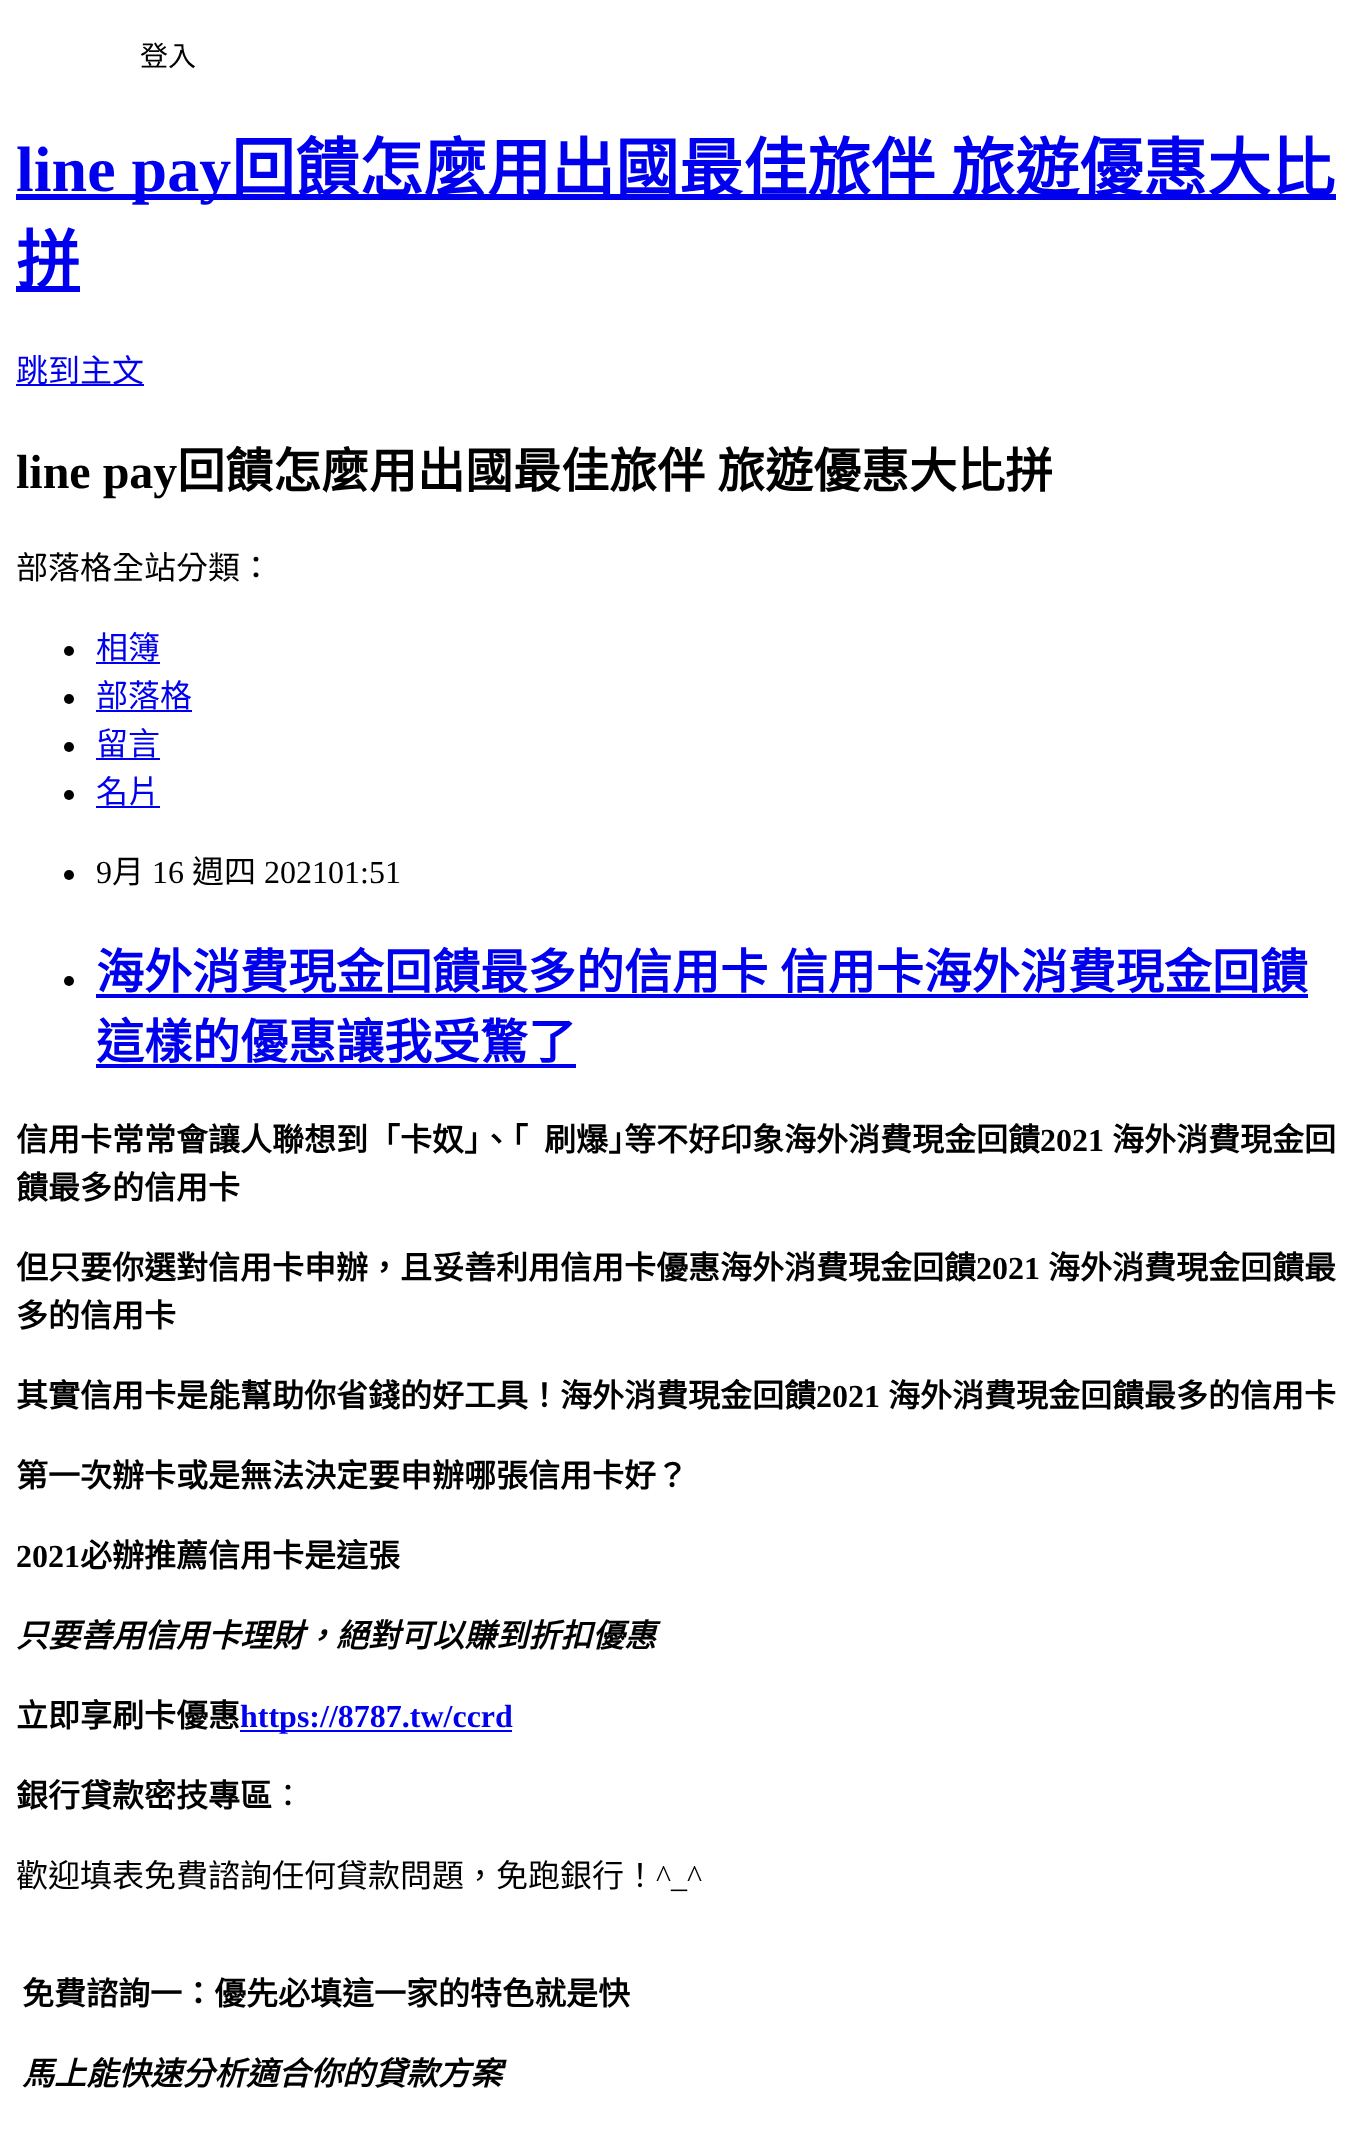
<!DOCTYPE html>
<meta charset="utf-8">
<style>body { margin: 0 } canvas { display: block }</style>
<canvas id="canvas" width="1367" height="2130"></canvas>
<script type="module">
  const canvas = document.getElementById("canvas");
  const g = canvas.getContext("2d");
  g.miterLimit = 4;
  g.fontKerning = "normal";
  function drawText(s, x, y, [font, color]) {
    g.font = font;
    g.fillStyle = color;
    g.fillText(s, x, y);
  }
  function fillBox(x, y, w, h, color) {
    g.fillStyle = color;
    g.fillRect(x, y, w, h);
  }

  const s1 = ["28px Noto Sans CJK TC", "#000000"];
  const s2 = ["bold 64px Liberation Serif", "#0000EE"];
  const s3 = ["bold 64px Noto Sans CJK TC", "#0000EE"];
  const s4 = ["32px Noto Sans CJK TC", "#0000EE"];
  const s5 = ["bold 48px Liberation Serif", "#000000"];
  const s6 = ["bold 48px Noto Sans CJK TC", "#000000"];
  const s7 = ["32px Noto Sans CJK TC", "#000000"];
  const s8 = ["32px Liberation Serif", "#000000"];
  const s9 = ["bold 48px Noto Sans CJK TC", "#0000EE"];
  const s10 = ["bold 32px Noto Sans CJK TC", "#000000"];
  const s11 = ["bold 32px Liberation Serif", "#000000"];
  const s12 = ["italic bold 32px Noto Sans CJK TC", "#000000"];
  const s13 = ["bold 32px Liberation Serif", "#0000EE"];

  fillBox(0, 0, 1367, 2130, "#FFFFFF");
  drawText("登入", 140, 66, s1);
  fillBox(16, 194, 1320, 6, "#0000EE");
  drawText("line pay", 16, 191, s2);
  drawText("回饋怎麼用出國最佳旅伴", 231, 191, s3);
  drawText("旅遊優惠大比", 951, 191, s3);
  fillBox(16, 286, 64, 6, "#0000EE");
  drawText("拼", 16, 283, s3);
  fillBox(16, 384, 128, 2, "#0000EE");
  drawText("跳到主文", 16, 382, s4);
  drawText("line pay", 16, 488, s5);
  drawText("回饋怎麼用出國最佳旅伴", 177, 488, s6);
  drawText("旅遊優惠大比拼", 717, 488, s6);
  drawText("部落格全站分類：", 16, 579, s7);
  g.beginPath();
  g.arc(69, 651, 5, 0, Math.PI * 2);
  g.fill();
  drawText("相簿", 96, 659, s4);
  fillBox(96, 662, 64, 2, "#0000EE");
  g.fillStyle = "#000000";
  g.beginPath();
  g.arc(69, 699, 5, 0, Math.PI * 2);
  g.fill();
  drawText("部落格", 96, 707, s4);
  fillBox(96, 710, 96, 2, "#0000EE");
  g.fillStyle = "#000000";
  g.beginPath();
  g.arc(69, 747, 5, 0, Math.PI * 2);
  g.fill();
  drawText("留言", 96, 755, s4);
  fillBox(96, 758, 64, 2, "#0000EE");
  g.fillStyle = "#000000";
  g.beginPath();
  g.arc(69, 795, 5, 0, Math.PI * 2);
  g.fill();
  drawText("名片", 96, 803, s4);
  fillBox(96, 806, 64, 2, "#0000EE");
  g.fillStyle = "#000000";
  g.beginPath();
  g.arc(69, 875, 5, 0, Math.PI * 2);
  g.fill();
  drawText("9", 96, 883, s8);
  drawText("月", 112, 883, s7);
  drawText("16", 152, 883, s8);
  drawText("週四", 192, 883, s7);
  drawText("202101:51", 264, 883, s8);
  g.beginPath();
  g.arc(69, 981, 5, 0, Math.PI * 2);
  g.fill();
  g.wordSpacing = "1px";
  drawText("海外消費現金回饋最多的信用卡 信用卡海外消費現金回饋", 96, 989, s9);
  fillBox(96, 994, 1212, 4, "#0000EE");
  g.wordSpacing = "0px";
  drawText("這樣的優惠讓我受驚了", 96, 1059, s9);
  fillBox(96, 1064, 480, 4, "#0000EE");
  drawText("信用卡常常會讓人聯想到「卡奴」", 16, 1151, s10);
  drawText("、「", 480, 1151, s10);
  drawText("刷爆」", 544, 1151, s10);
  drawText("等不好印象海外消費現金回饋", 624, 1151, s10);
  drawText("2021", 1040, 1151, s11);
  drawText("海外消費現金回", 1112, 1151, s10);
  drawText("饋最多的信用卡", 16, 1199, s10);
  drawText("但只要你選對信用卡申辦，且妥善利用信用卡優惠海外消費現金回饋", 16, 1279, s10);
  drawText("2021", 976, 1279, s11);
  drawText("海外消費現金回饋最", 1048, 1279, s10);
  drawText("多的信用卡", 16, 1327, s10);
  drawText("其實信用卡是能幫助你省錢的好工具！海外消費現金回饋", 16, 1407, s10);
  drawText("2021", 816, 1407, s11);
  drawText("海外消費現金回饋最多的信用卡", 888, 1407, s10);
  drawText("第一次辦卡或是無法決定要申辦哪張信用卡好？", 16, 1487, s10);
  drawText("2021", 16, 1567, s11);
  drawText("必辦推薦信用卡是這張", 80, 1567, s10);
  drawText("只要善用信用卡理財，絕對可以賺到折扣優惠", 16, 1647, s12);
  drawText("立即享刷卡優惠", 16, 1727, s10);
  fillBox(240, 1730, 272, 2, "#0000EE");
  drawText("https://8787.tw/ccrd", 240, 1727, s13);
  drawText("銀行貸款密技專區", 16, 1807, s10);
  drawText("：", 272, 1807, s7);
  drawText("歡迎填表免費諮詢任何貸款問題，免跑銀行！", 16, 1887, s7);
  drawText("^_^", 656, 1887, s8);
  drawText("免費諮詢一：優先必填這一家的特色就是快", 22, 2005, s10);
  drawText("馬上能快速分析適合你的貸款方案", 22, 2085, s12);
</script>
